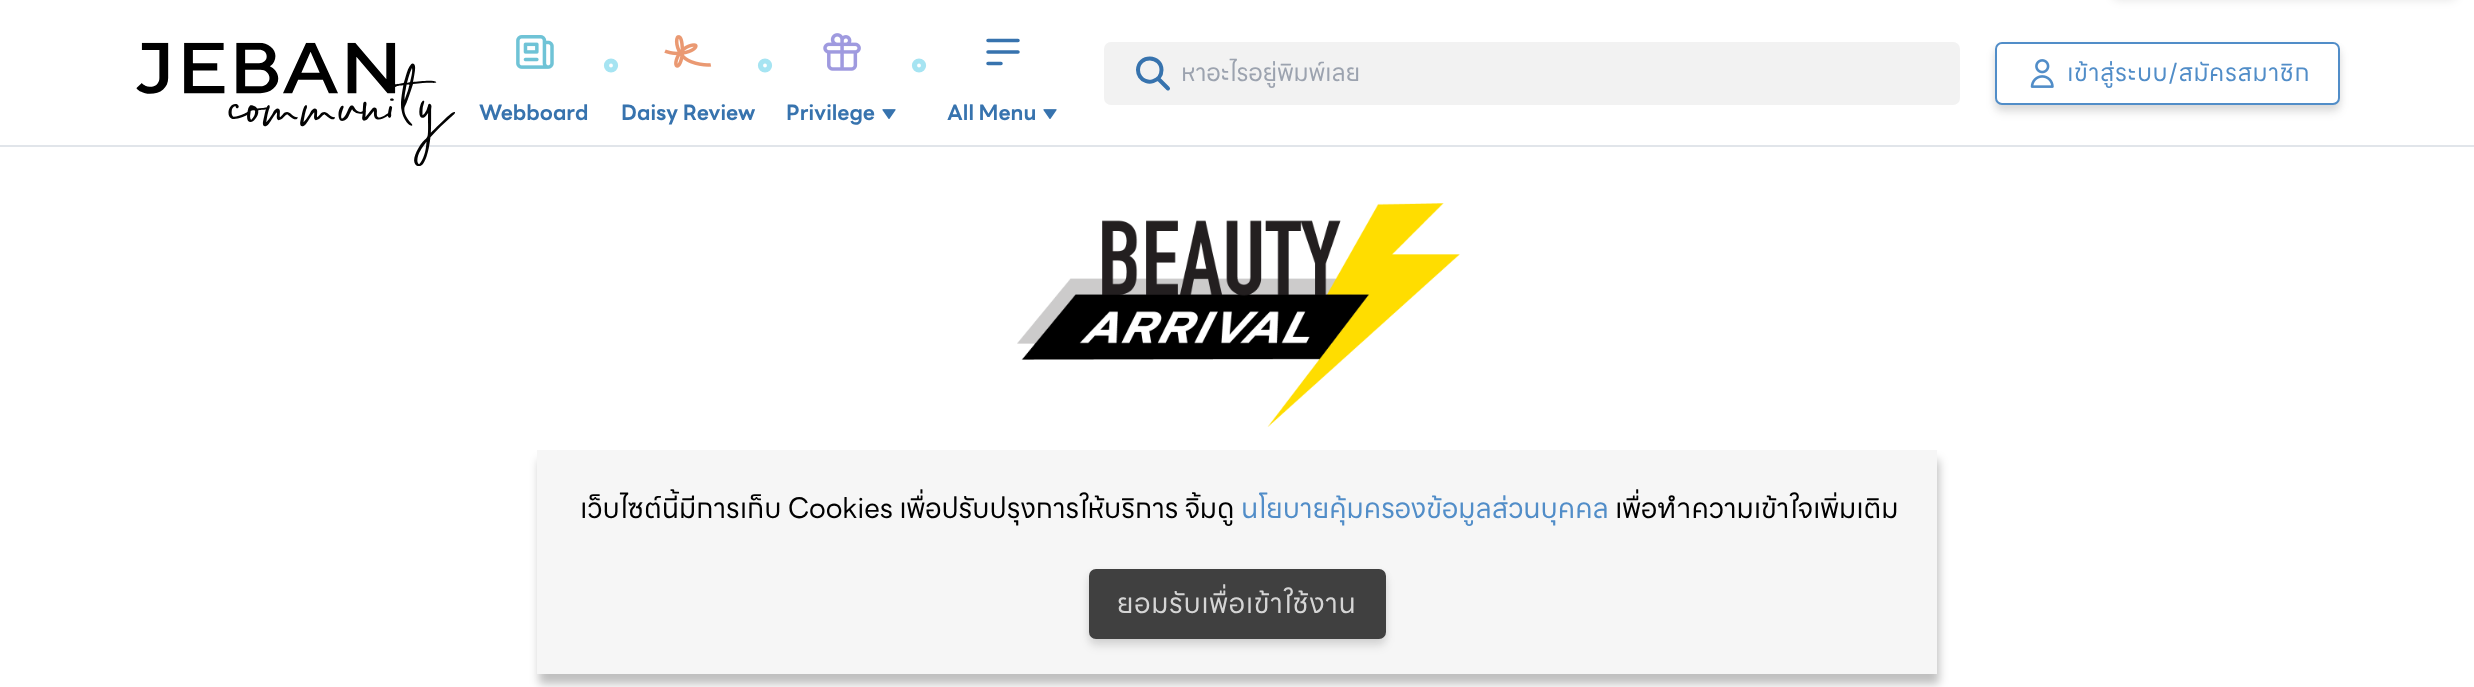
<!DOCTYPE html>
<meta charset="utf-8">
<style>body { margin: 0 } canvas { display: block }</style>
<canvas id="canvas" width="2474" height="687"></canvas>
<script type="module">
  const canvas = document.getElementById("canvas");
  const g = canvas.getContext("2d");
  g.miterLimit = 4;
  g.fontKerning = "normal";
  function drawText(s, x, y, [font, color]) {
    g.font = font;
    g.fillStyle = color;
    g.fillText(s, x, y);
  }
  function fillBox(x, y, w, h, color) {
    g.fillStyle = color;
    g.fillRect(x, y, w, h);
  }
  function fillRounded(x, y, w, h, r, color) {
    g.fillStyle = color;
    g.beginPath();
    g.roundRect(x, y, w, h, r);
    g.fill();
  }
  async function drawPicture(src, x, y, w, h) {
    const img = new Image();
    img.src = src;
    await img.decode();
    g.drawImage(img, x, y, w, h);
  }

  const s1 = ["24.5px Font", "#9CA3AF"];
  const s2 = ["24.5px Font", "#518DC8"];
  const s3 = ["bold 21px Font", "#3773AE"];
  const s4 = ["28px Font", "#000000"];
  const s5 = ["28px Font", "#518DC8"];
  const s6 = ["28px Font", "#D5D5D5"];

  fillBox(0, 0, 2474, 687, "#FFFFFF");
  g.fillStyle = "rgba(0, 0, 0, 0.1)";
  g.filter = "blur(5px)";
  g.beginPath();
  g.roundRect(2112, -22, 345, 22, 7);
  g.fill();
  g.filter = "none";
  fillBox(0, 145, 2474, 2, "#E1E5EA");
  await drawPicture("pic1.png", 136, 42, 319, 124);
  fillRounded(1104, 42, 856, 63, 7, "#F2F2F2");
  g.beginPath();
  g.moveTo(1168, 88.5);
  g.lineTo(1158, 78.5);
  g.moveTo(1161.5, 70);
  g.bezierCurveTo(1161.5, 81.5, 1146.5, 86, 1140, 76.5);
  g.bezierCurveTo(1139, 75, 1138, 72.5, 1138, 70);
  g.bezierCurveTo(1138.5, 54.5, 1161.5, 55, 1161.5, 70);
  g.closePath();
  g.strokeStyle = "#3773AE";
  g.lineWidth = 4;
  g.lineCap = "round";
  g.lineJoin = "round";
  g.stroke();
  drawText("หาอะไรอยู่พิมพ์เลย", 1181, 81, s1);
  g.fillStyle = "rgba(0, 0, 0, 0.06)";
  g.filter = "blur(3.5px)";
  g.beginPath();
  g.roundRect(1995, 46, 345, 63, 7);
  g.fill();
  g.filter = "none";
  g.fillStyle = "rgba(0, 0, 0, 0.1)";
  g.filter = "blur(5px)";
  g.beginPath();
  g.roundRect(1995, 49, 345, 63, 7);
  g.fill();
  g.filter = "none";
  g.fillStyle = "#FFFFFF";
  g.beginPath();
  g.roundRect(1996, 43, 343, 61, 6);
  g.fill();
  g.strokeStyle = "#518DC8";
  g.lineWidth = 2;
  g.lineJoin = "miter";
  g.stroke();
  await drawPicture("pic2.png", 2030, 59, 24, 29);
  g.letterSpacing = "0.6px";
  drawText("เข้าสู่ระบบ/สมัครสมาชิก", 2067, 81, s2);
  await drawPicture("pic3.png", 516, 35, 38, 34);
  g.beginPath();
  g.arc(611, 65.5, 4.5, 0, Math.PI * 2);
  g.strokeStyle = "#A6E4F2";
  g.lineWidth = 5.2;
  g.stroke();
  g.letterSpacing = "0px";
  drawText("Webboard", 479, 120, s3);
  await drawPicture("pic4.png", 664, 35, 48, 33);
  g.beginPath();
  g.arc(765, 65.5, 4.5, 0, Math.PI * 2);
  g.stroke();
  drawText("Daisy Review", 621, 120, s3);
  g.beginPath();
  g.arc(919, 65.5, 4.5, 0, Math.PI * 2);
  g.stroke();
  await drawPicture("pic5.png", 823, 33, 38, 38);
  drawText("Privilege", 786, 120, s3);
  await drawPicture("pic6.png", 882, 109, 14, 10);
  g.beginPath();
  g.moveTo(988, 63.5);
  g.lineTo(1001, 63.5);
  g.moveTo(988, 40.5);
  g.lineTo(1018, 40.5);
  g.closePath();
  g.moveTo(988, 52);
  g.lineTo(1018, 52);
  g.closePath();
  g.strokeStyle = "#3773AE";
  g.lineWidth = 3.5;
  g.lineJoin = "round";
  g.stroke();
  drawText("All Menu", 947, 120, s3);
  await drawPicture("pic6.png", 1043, 109, 14, 10);
  await drawPicture("pic7.png", 1017, 203, 443, 224);
  g.save();
  g.beginPath();
  g.moveTo(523, 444);
  g.lineTo(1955, 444);
  g.lineTo(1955, 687);
  g.lineTo(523, 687);
  g.closePath();
  g.moveTo(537, 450);
  g.lineTo(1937, 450);
  g.lineTo(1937, 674);
  g.lineTo(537, 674);
  g.closePath();
  g.clip("evenodd");
  g.fillStyle = "rgba(0, 0, 0, 0.25)";
  g.filter = "blur(5px)";
  g.beginPath();
  g.rect(539, 460, 1400, 224);
  g.fill();
  g.filter = "none";
  g.restore();
  fillBox(537, 450, 1400, 224, "rgba(245, 245, 245, 0.9)");
  drawText("เว็บไซต์นี้มีการเก็บ Cookies เพื่อปรับปรุงการให้บริการ จิ้มดู", 580, 518, s4);
  drawText("นโยบายคุ้มครองข้อมูลส่วนบุคคล", 1241, 518, s5);
  drawText("เพื่อทำความเข้าใจเพิ่มเติม", 1615, 518, s4);
  g.fillStyle = "rgba(0, 0, 0, 0.06)";
  g.filter = "blur(3.5px)";
  g.beginPath();
  g.roundRect(1089, 572, 297, 70, 7);
  g.fill();
  g.filter = "none";
  g.fillStyle = "rgba(0, 0, 0, 0.1)";
  g.filter = "blur(5px)";
  g.beginPath();
  g.roundRect(1089, 576, 297, 70, 7);
  g.fill();
  g.filter = "none";
  g.fillStyle = "#404040";
  g.beginPath();
  g.roundRect(1090, 570, 295, 68, 6);
  g.fill();
  g.strokeStyle = "#404040";
  g.lineWidth = 2;
  g.lineJoin = "miter";
  g.stroke();
  g.letterSpacing = "0.7px";
  drawText("ยอมรับเพื่อเข้าใช้งาน", 1117, 613, s6);
</script>
